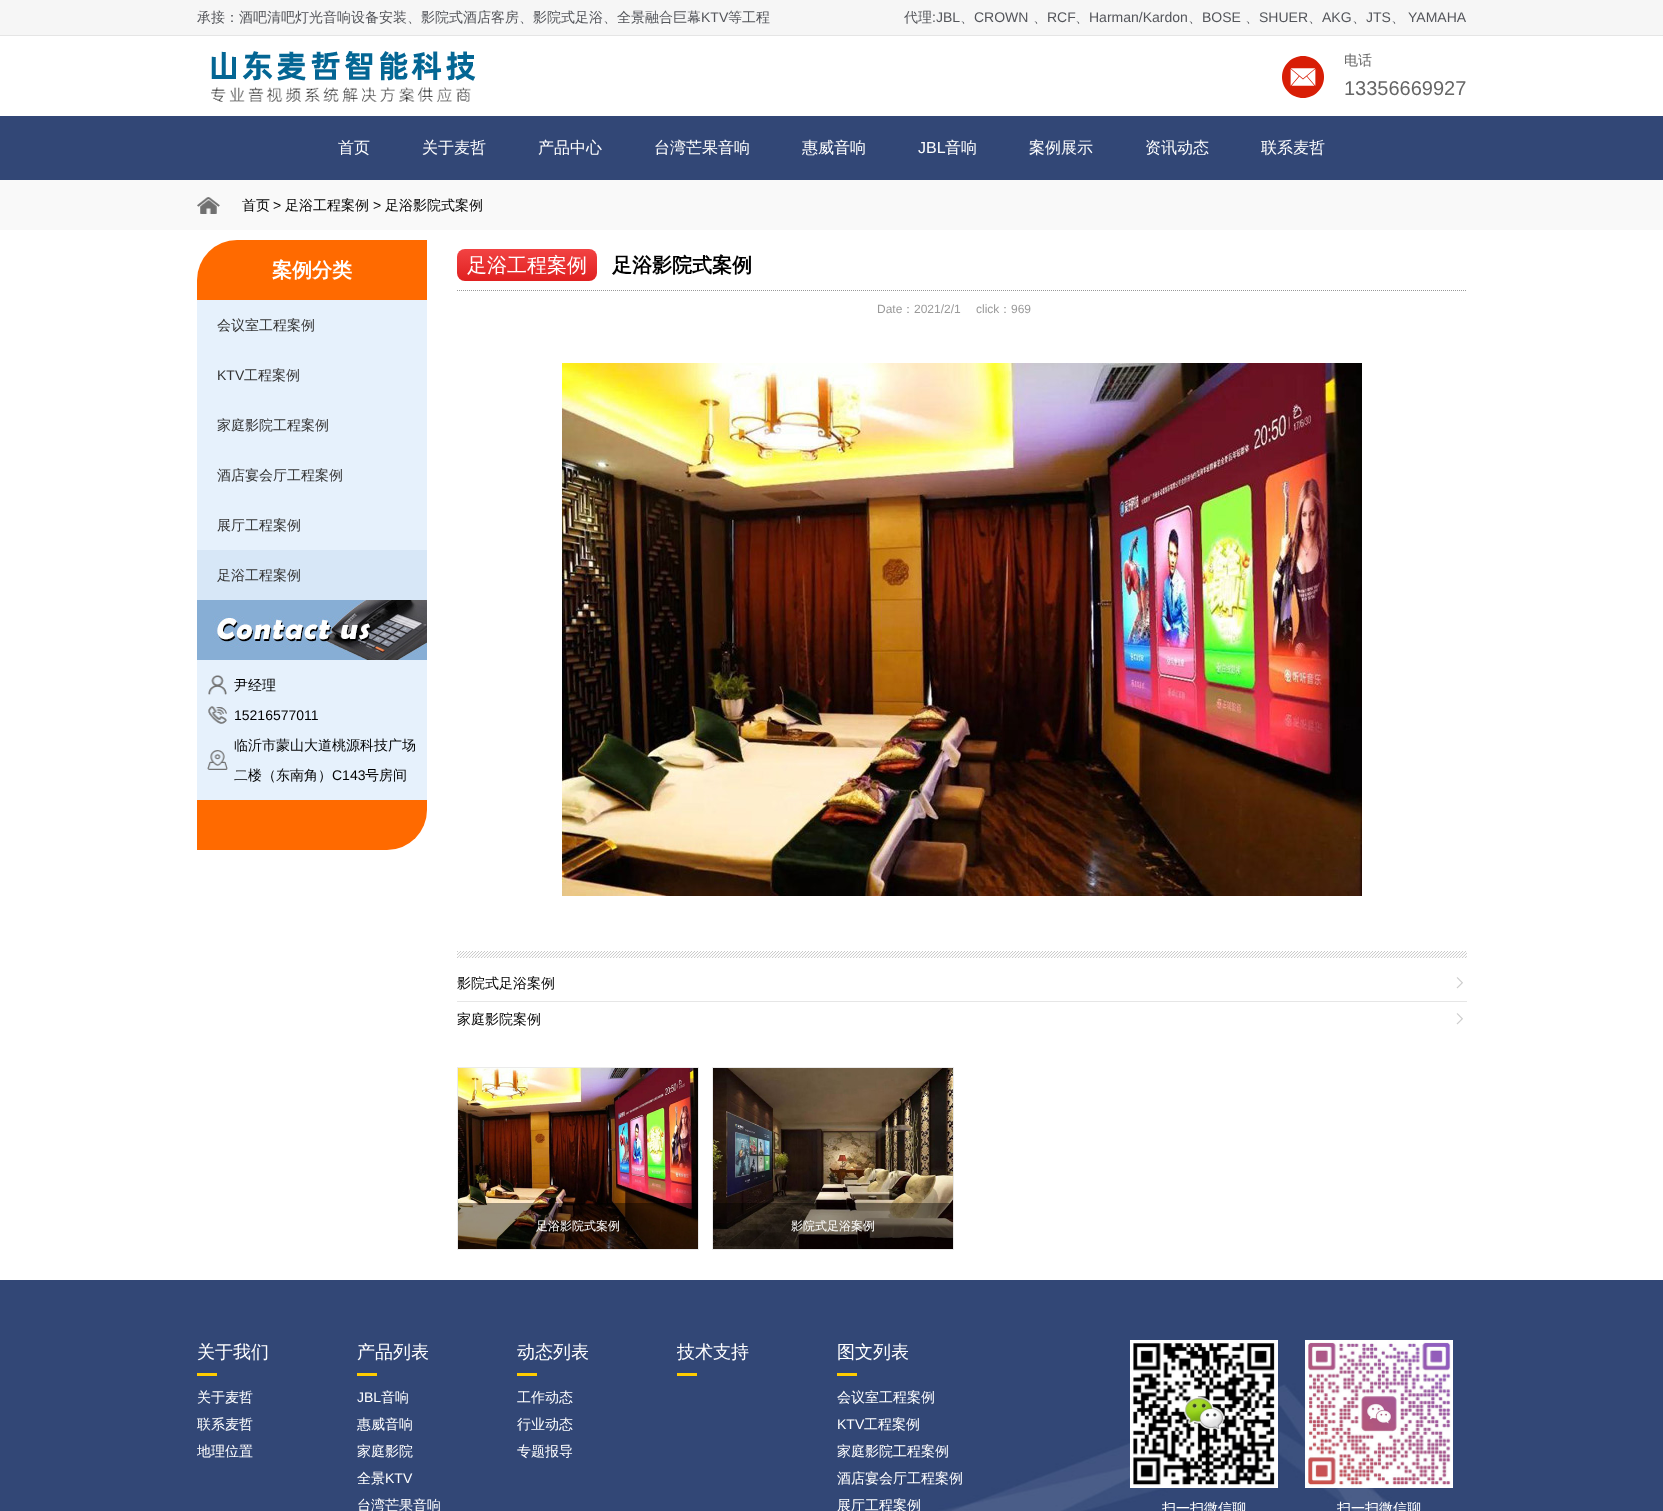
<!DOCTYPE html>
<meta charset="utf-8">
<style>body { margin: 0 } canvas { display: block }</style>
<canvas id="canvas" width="1663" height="1511"></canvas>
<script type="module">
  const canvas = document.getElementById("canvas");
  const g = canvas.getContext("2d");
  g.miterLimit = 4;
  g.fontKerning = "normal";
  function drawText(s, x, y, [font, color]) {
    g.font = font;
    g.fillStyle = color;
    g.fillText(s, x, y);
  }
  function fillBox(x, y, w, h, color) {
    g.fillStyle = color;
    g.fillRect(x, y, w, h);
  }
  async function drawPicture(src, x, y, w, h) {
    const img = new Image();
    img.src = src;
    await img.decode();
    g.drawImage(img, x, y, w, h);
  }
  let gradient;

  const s1 = ["500 14px WenQuanYi Zen Hei", "#53555A"];
  const s2 = ["14px Liberation Sans", "#53555A"];
  const s3 = ["500 14px WenQuanYi Zen Hei", "#666666"];
  const s4 = ["20px Liberation Sans", "#666666"];
  const s5 = ["500 16px WenQuanYi Zen Hei", "#FFFFFF"];
  const s6 = ["16px Liberation Sans", "#FFFFFF"];
  const s7 = ["500 14px WenQuanYi Zen Hei", "#000000"];
  const s8 = ["14px Liberation Sans", "#000000"];
  const s9 = ["bold 20px WenQuanYi Zen Hei", "#FFFFFF"];
  const s10 = ["500 14px WenQuanYi Zen Hei", "#333333"];
  const s11 = ["14px Liberation Sans", "#333333"];
  const s12 = ["500 20px WenQuanYi Zen Hei", "#FFFFFF"];
  const s13 = ["bold 20px WenQuanYi Zen Hei", "#000000"];
  const s14 = ["12px Liberation Sans", "#999999"];
  const s15 = ["500 12px WenQuanYi Zen Hei", "#999999"];
  const s16 = ["500 12px WenQuanYi Zen Hei", "#FFFFFF"];
  const s17 = ["500 18px WenQuanYi Zen Hei", "#FFFFFF"];
  const s18 = ["500 14px WenQuanYi Zen Hei", "#FFFFFF"];
  const s19 = ["14px Liberation Sans", "#FFFFFF"];

  fillBox(0, 0, 1663, 1511, "#FFFFFF");
  fillBox(0, 0, 1663, 35, "#F6F6F6");
  fillBox(0, 35, 1663, 1, "#E5E5E5");
  drawText("承接：酒吧清吧灯光音响设备安装、影院式酒店客房、影院式足浴、全景融合巨幕", 197, 22, s1);
  drawText("KTV", 701, 22, s2);
  drawText("等工程", 728, 22, s1);
  drawText("代理", 904, 22, s1);
  drawText(":JBL", 932, 22, s2);
  drawText("、", 960, 22, s1);
  drawText("CROWN", 974, 22, s2);
  drawText("、", 1033, 22, s1);
  drawText("RCF", 1047, 22, s2);
  drawText("、", 1075, 22, s1);
  drawText("Harman/Kardon", 1089, 22, s2);
  drawText("、", 1188, 22, s1);
  drawText("BOSE", 1202, 22, s2);
  drawText("、", 1245, 22, s1);
  drawText("SHUER", 1259, 22, s2);
  drawText("、", 1308, 22, s1);
  drawText("AKG", 1322, 22, s2);
  drawText("、", 1352, 22, s1);
  drawText("JTS", 1366, 22, s2);
  drawText("、", 1391, 22, s1);
  drawText("YAMAHA", 1408, 22, s2);
  await drawPicture("pic1.png", 211, 51, 265, 51);
  await drawPicture("pic2.png", 1282, 56, 42, 42);
  drawText("电话", 1344, 65, s3);
  drawText("13356669927", 1344, 95, s4);
  fillBox(0, 116, 1663, 64, "#324776");
  drawText("首页", 338, 153, s5);
  drawText("关于麦哲", 422, 153, s5);
  drawText("产品中心", 538, 153, s5);
  drawText("台湾芒果音响", 654, 153, s5);
  drawText("惠威音响", 802, 153, s5);
  drawText("JBL", 918, 153, s6);
  drawText("音响", 945, 153, s5);
  drawText("案例展示", 1029, 153, s5);
  drawText("资讯动态", 1145, 153, s5);
  drawText("联系麦哲", 1261, 153, s5);
  fillBox(0, 180, 1663, 50, "#F9F9F9");
  await drawPicture("pic3.png", 197, 197, 23, 17);
  drawText("首页", 242, 210, s7);
  drawText(">", 273, 210, s8);
  drawText("足浴工程案例", 285, 210, s7);
  drawText(">", 373, 210, s8);
  drawText("足浴影院式案例", 385, 210, s7);
  g.fillStyle = "#FF6A00";
  g.beginPath();
  g.roundRect(197, 240, 230, 60, [40, 0, 0, 0]);
  g.fill();
  drawText("案例分类", 272, 277, s9);
  fillBox(197, 300, 230, 250, "#E6F1FC");
  drawText("会议室工程案例", 217, 330, s10);
  drawText("KTV", 217, 380, s11);
  drawText("工程案例", 244, 380, s10);
  drawText("家庭影院工程案例", 217, 430, s10);
  drawText("酒店宴会厅工程案例", 217, 480, s10);
  drawText("展厅工程案例", 217, 530, s10);
  fillBox(197, 550, 230, 50, "#D7E7F7");
  drawText("足浴工程案例", 217, 580, s10);
  await drawPicture("pic4.png", 197, 600, 230, 60);
  fillBox(197, 660, 230, 140, "#E6F1FC");
  await drawPicture("pic5.png", 208, 675, 19, 20);
  drawText("尹经理", 234, 690, s7);
  await drawPicture("pic6.png", 208, 706, 19, 18);
  drawText("15216577011", 234, 720, s8);
  await drawPicture("pic7.png", 207, 750, 21, 20);
  drawText("临沂市蒙山大道桃源科技广场", 234, 750, s7);
  drawText("二楼（东南角）", 234, 780, s7);
  drawText("C143", 332, 780, s8);
  drawText("号房间", 365, 780, s7);
  g.fillStyle = "#FF6A00";
  g.beginPath();
  g.roundRect(197, 800, 230, 50, [0, 0, 40, 0]);
  g.fill();
  g.beginPath();
  g.moveTo(457, 290.5);
  g.lineTo(1467, 290.5);
  g.strokeStyle = "#999999";
  g.setLineDash([1, 1]);
  g.stroke();
  gradient = g.createLinearGradient(527, 249, 527, 281);
  gradient.addColorStop(0, "#F24343");
  gradient.addColorStop(1, "#E02020");
  g.fillStyle = gradient;
  g.beginPath();
  g.roundRect(457, 249, 140, 32, 8);
  g.fill();
  drawText("足浴工程案例", 467, 272, s12);
  drawText("足浴影院式案例", 612, 272, s13);
  drawText("Date", 877, 313, s14);
  drawText("：", 902, 313, s15);
  drawText("2021/2/1", 914, 313, s14);
  drawText("click", 976, 313, s14);
  drawText("：", 999, 313, s15);
  drawText("969", 1011, 313, s14);
  await drawPicture("pic8.png", 562, 363, 800, 533);
  await drawPicture("pic9.png", 457, 951, 1010, 7);
  drawText("影院式足浴案例", 457, 988, s7);
  await drawPicture("pic10.png", 1456, 977, 7, 12);
  fillBox(457, 1001, 1010, 1, "#E6E6E6");
  drawText("家庭影院案例", 457, 1024, s7);
  await drawPicture("pic10.png", 1456, 1013, 7, 12);
  g.strokeStyle = "#EBEBEB";
  g.setLineDash([]);
  g.strokeRect(457.5, 1067.5, 241, 182);
  await drawPicture("pic11.png", 458, 1068, 240, 181);
  fillBox(458, 1203, 240, 46, "rgba(0, 0, 0, 0.4)");
  drawText("足浴影院式案例", 536, 1230, s16);
  g.strokeRect(712.5, 1067.5, 241, 182);
  await drawPicture("pic12.png", 713, 1068, 240, 181);
  fillBox(713, 1203, 240, 46, "rgba(0, 0, 0, 0.4)");
  drawText("影院式足浴案例", 791, 1230, s16);
  await drawPicture("pic13.png", 0, 1280, 1663, 231);
  drawText("关于我们", 197, 1358, s17);
  fillBox(197, 1373, 20, 3, "#FFCC00");
  drawText("关于麦哲", 197, 1402, s18);
  g.save();
  g.beginPath();
  g.rect(197, 1340, 1270, 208);
  g.clip();
  drawText("联系麦哲", 197, 1429, s18);
  drawText("地理位置", 197, 1456, s18);
  g.restore();
  drawText("产品列表", 357, 1358, s17);
  fillBox(357, 1373, 20, 3, "#FFCC00");
  drawText("JBL", 357, 1402, s19);
  drawText("音响", 381, 1402, s18);
  drawText("惠威音响", 357, 1429, s18);
  drawText("家庭影院", 357, 1456, s18);
  drawText("全景", 357, 1483, s18);
  drawText("KTV", 385, 1483, s19);
  drawText("台湾芒果音响", 357, 1510, s18);
  drawText("动态列表", 517, 1358, s17);
  fillBox(517, 1373, 20, 3, "#FFCC00");
  drawText("工作动态", 517, 1402, s18);
  drawText("行业动态", 517, 1429, s18);
  drawText("专题报导", 517, 1456, s18);
  drawText("技术支持", 677, 1358, s17);
  fillBox(677, 1373, 20, 3, "#FFCC00");
  drawText("图文列表", 837, 1358, s17);
  fillBox(837, 1373, 20, 3, "#FFCC00");
  drawText("会议室工程案例", 837, 1402, s18);
  drawText("KTV", 837, 1429, s19);
  drawText("工程案例", 864, 1429, s18);
  drawText("家庭影院工程案例", 837, 1456, s18);
  drawText("酒店宴会厅工程案例", 837, 1483, s18);
  drawText("展厅工程案例", 837, 1510, s18);
  await drawPicture("pic14.png", 1130, 1340, 148, 148);
  drawText("扫一扫微信聊", 1162, 1513, s18);
  await drawPicture("pic15.png", 1305, 1340, 148, 148);
  drawText("扫一扫微信聊", 1337, 1513, s18);
</script>
